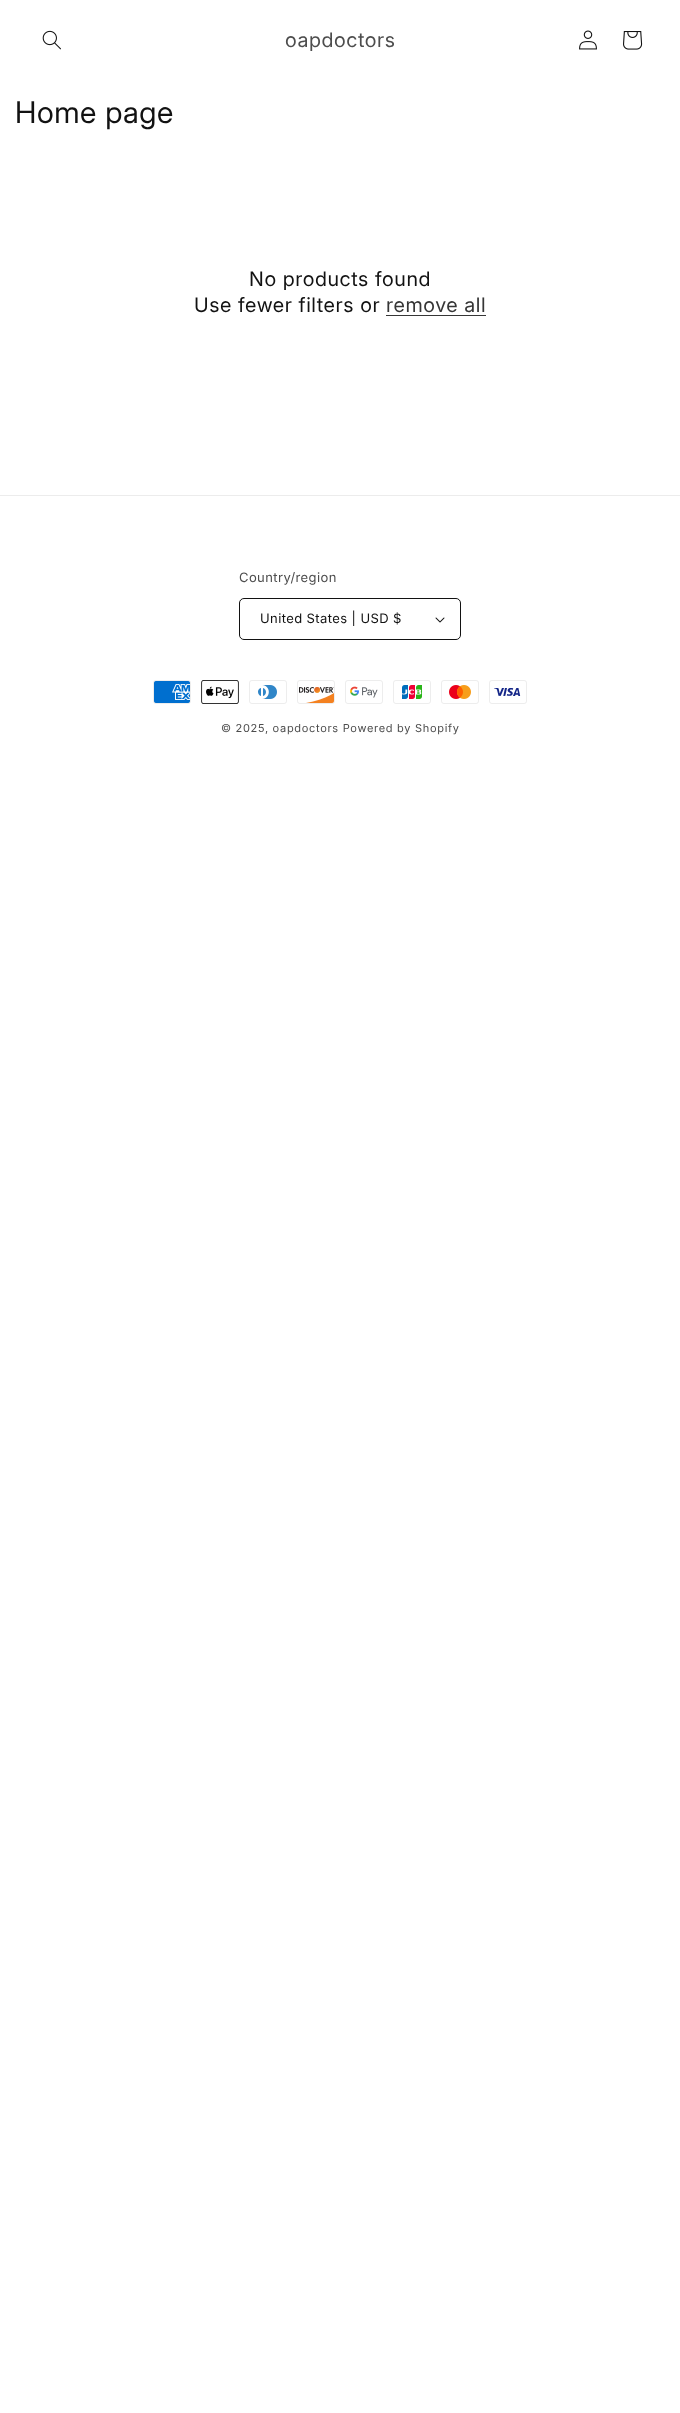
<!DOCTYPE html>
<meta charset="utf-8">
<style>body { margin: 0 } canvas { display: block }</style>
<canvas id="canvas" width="680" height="2413"></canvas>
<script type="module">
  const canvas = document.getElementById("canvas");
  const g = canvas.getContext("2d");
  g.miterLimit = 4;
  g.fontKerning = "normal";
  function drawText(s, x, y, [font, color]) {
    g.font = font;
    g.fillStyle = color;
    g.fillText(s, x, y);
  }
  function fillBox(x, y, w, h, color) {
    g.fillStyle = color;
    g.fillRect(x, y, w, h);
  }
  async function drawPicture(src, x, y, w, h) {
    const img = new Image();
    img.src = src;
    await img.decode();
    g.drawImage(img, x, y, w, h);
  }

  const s1 = ["20px 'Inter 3'", "#4D4D4D"];
  const s2 = ["30px Inter", "#121212"];
  const s3 = ["20px 'Inter 3'", "#121212"];
  const s4 = ["20px 'Inter 3'", "#363636"];
  const s5 = ["13px 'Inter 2'", "#4D4D4D"];
  const s6 = ["13px 'Inter 2'", "#121212"];
  const s7 = ["11px 'Inter 2'", "#4D4D4D"];

  fillBox(0, 0, 680, 2413, "#FFFFFF");
  await drawPicture("pic1.png", 42, 30, 19, 20);
  g.letterSpacing = "0.6px";
  drawText("oapdoctors", 285, 47, s1);
  await drawPicture("pic2.png", 579, 30, 18, 20);
  await drawPicture("pic3.png", 623, 31, 20, 19);
  drawText("Home page", 15, 123, s2);
  drawText("No products found", 249, 286, s3);
  drawText("Use fewer filters or", 194, 312, s3);
  drawText("remove all", 386, 312, s4);
  fillBox(386, 315, 100, 1, "#363636");
  fillBox(0, 495, 680, 1, "#ECECEC");
  g.letterSpacing = "0.4px";
  drawText("Country/region", 239, 582, s5);
  await drawPicture("pic4.png", 435, 617, 10, 6);
  g.beginPath();
  g.roundRect(239.5, 598.5, 221, 41, 4.5);
  g.strokeStyle = "#121212";
  g.stroke();
  drawText("United States | USD $", 260, 623, s6);
  await drawPicture("pic5.png", 153, 680, 38, 24);
  await drawPicture("pic6.png", 201, 680, 38, 24);
  await drawPicture("pic7.png", 249, 680, 38, 24);
  await drawPicture("pic8.png", 297, 680, 38, 24);
  await drawPicture("pic9.png", 345, 680, 38, 24);
  await drawPicture("pic10.png", 393, 680, 38, 24);
  await drawPicture("pic11.png", 441, 680, 38, 24);
  await drawPicture("pic12.png", 489, 680, 38, 24);
  g.letterSpacing = "0.7px";
  drawText("© 2025, oapdoctors Powered by Shopify", 221, 732, s7);
</script>
